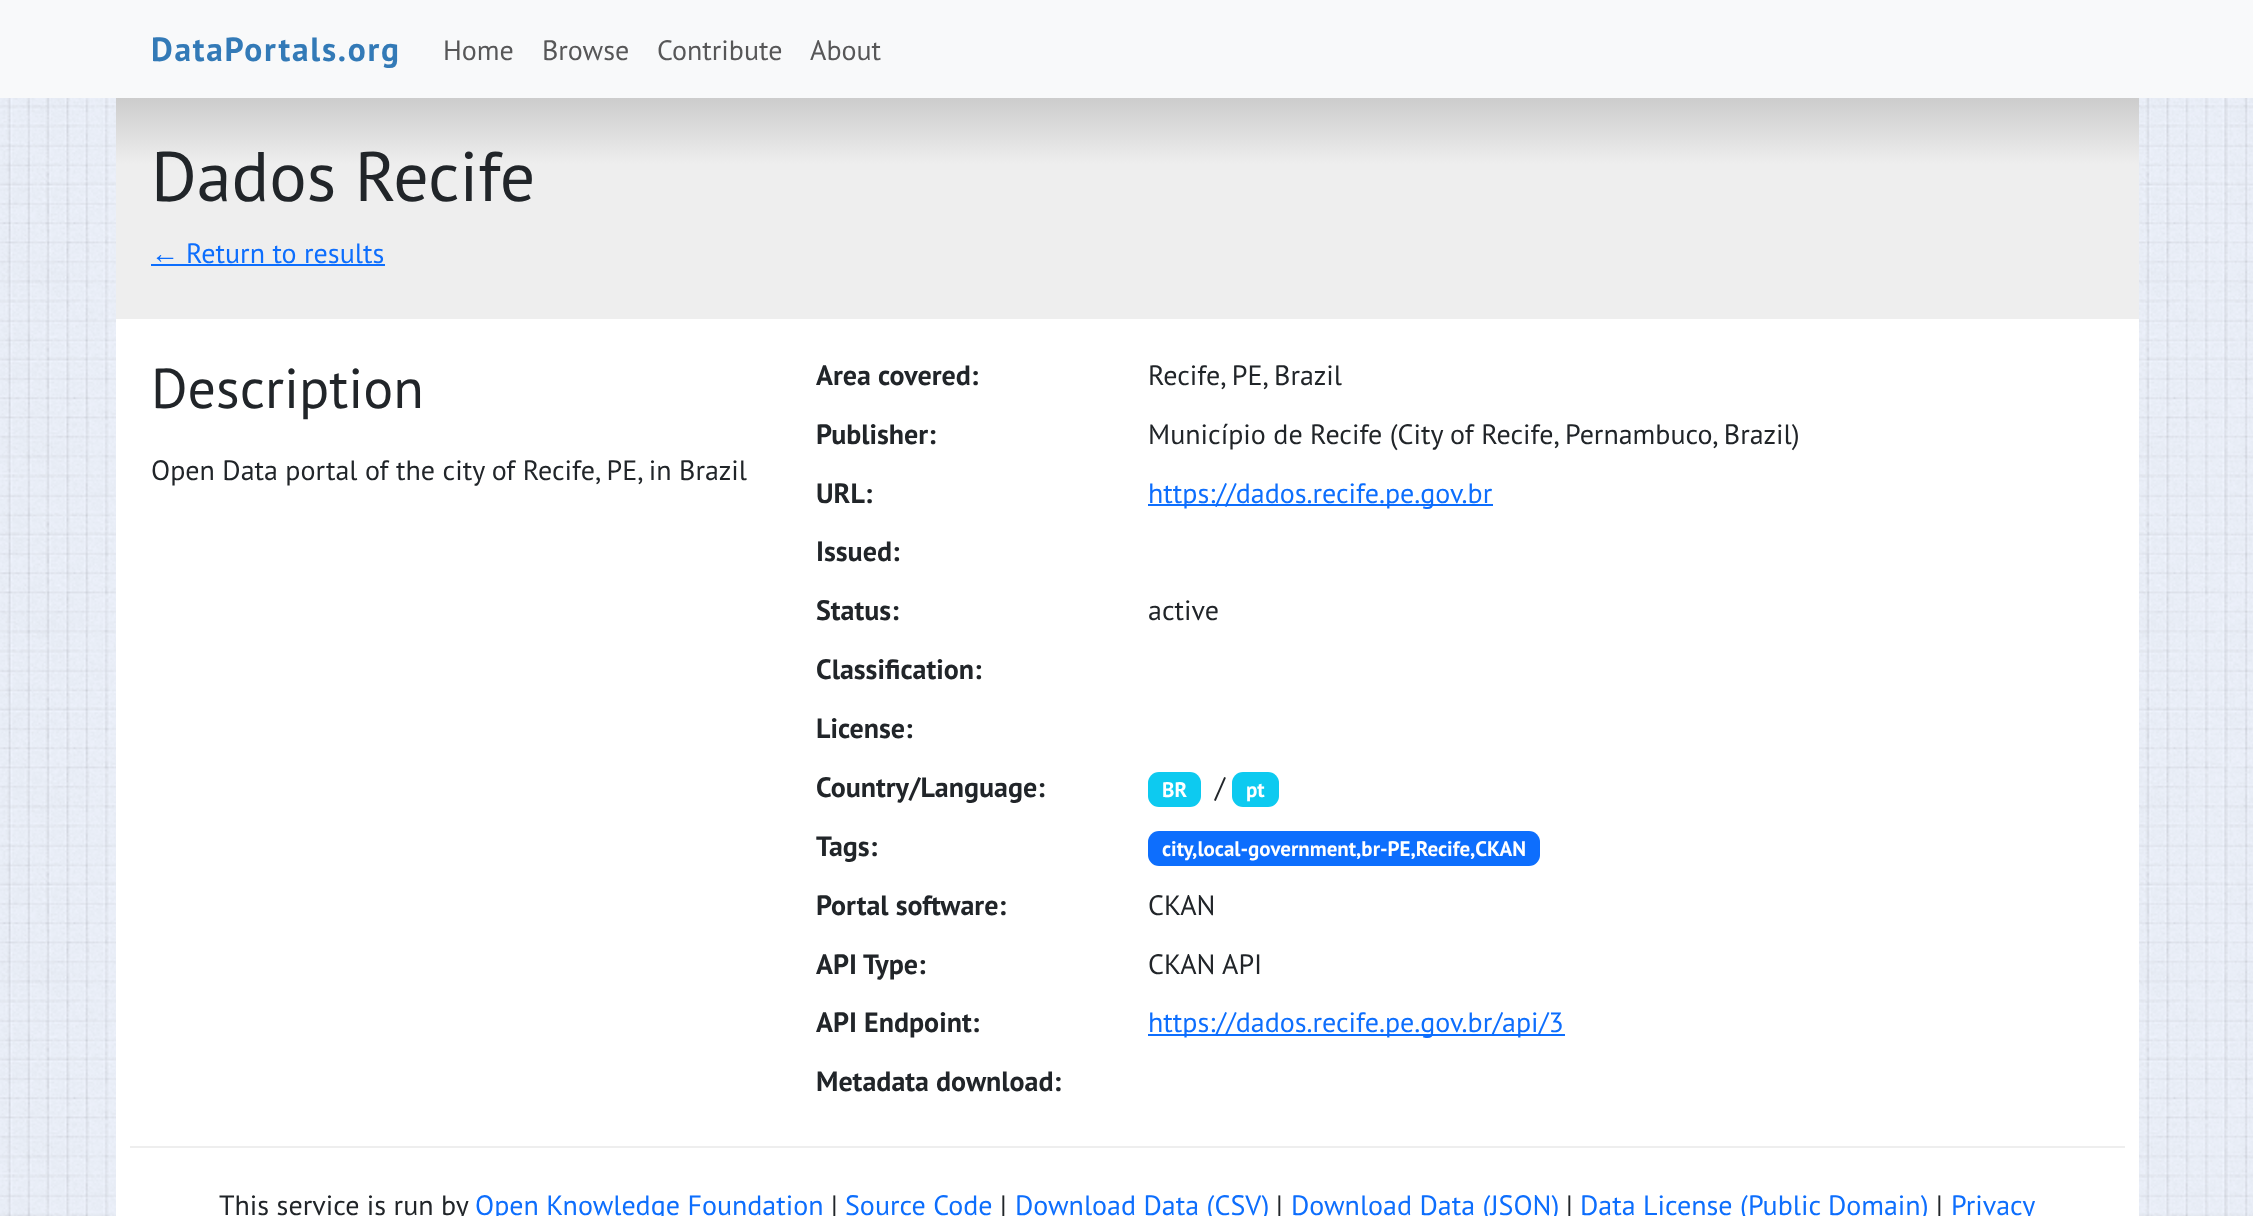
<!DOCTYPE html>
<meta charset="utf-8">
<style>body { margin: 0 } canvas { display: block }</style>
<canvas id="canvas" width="2253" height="1216"></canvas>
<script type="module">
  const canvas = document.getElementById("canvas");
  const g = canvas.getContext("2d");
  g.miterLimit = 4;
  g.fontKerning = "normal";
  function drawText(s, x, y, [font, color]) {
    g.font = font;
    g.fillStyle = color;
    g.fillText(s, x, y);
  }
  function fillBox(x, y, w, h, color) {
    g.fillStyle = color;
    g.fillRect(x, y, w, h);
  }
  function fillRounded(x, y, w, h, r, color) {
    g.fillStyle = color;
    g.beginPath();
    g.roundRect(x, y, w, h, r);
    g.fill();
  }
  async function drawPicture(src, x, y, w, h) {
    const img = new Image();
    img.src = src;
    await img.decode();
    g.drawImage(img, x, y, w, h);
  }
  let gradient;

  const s1 = ["bold 33.5px PT Sans", "#337AB7"];
  const s2 = ["28px PT Sans", "#575758"];
  const s3 = ["70px PT Sans", "#212529"];
  const s4 = ["28px Liberation Sans", "#0D6EFD"];
  const s5 = ["28px PT Sans", "#0D6EFD"];
  const s6 = ["56px PT Sans", "#212529"];
  const s7 = ["28px PT Sans", "#212529"];
  const s8 = ["bold 28px PT Sans", "#212529"];
  const s9 = ["bold 21px PT Sans", "#FFFFFF"];

  fillBox(0, 0, 2253, 1216, "#FFFFFF");
  await drawPicture("pic1.png", 0, 98, 2253, 1118);
  fillBox(0, 0, 2253, 98, "#F8F9FA");
  g.letterSpacing = "1.75px";
  drawText("DataPortals.org", 151, 61, s1);
  g.letterSpacing = "0px";
  drawText("Home", 443, 60, s2);
  drawText("Browse", 542, 60, s2);
  drawText("Contribute", 657, 60, s2);
  drawText("About", 810, 60, s2);
  fillBox(116, 319, 2023, 897, "#FFFFFF");
  gradient = g.createLinearGradient(1127, 319, 1127, 98);
  gradient.addColorStop(0.7, "#EEEEEE");
  gradient.addColorStop(1, "#CCCCCC");
  g.fillStyle = gradient;
  g.fillRect(116, 98, 2023, 221);
  drawText("Dados Recife", 151, 201, s3);
  drawText("←", 151, 263, s4);
  fillBox(151, 264, 234, 2, "#0D6EFD");
  drawText("Return to results", 186, 263, s5);
  drawText("Description", 151, 408, s6);
  drawText("Open Data portal of the city of Recife, PE, in Brazil", 151, 480, s7);
  drawText("Area covered:", 816, 385, s8);
  drawText("Recife, PE, Brazil", 1148, 385, s7);
  drawText("Publisher:", 816, 444, s8);
  drawText("Município de Recife (City of Recife, Pernambuco, Brazil)", 1148, 444, s7);
  drawText("URL:", 816, 503, s8);
  fillBox(1148, 504, 345, 2, "#0D6EFD");
  drawText("https://dados.recife.pe.gov.br", 1148, 503, s5);
  drawText("Issued:", 816, 561, s8);
  drawText("Status:", 816, 620, s8);
  drawText("active", 1148, 620, s7);
  drawText("Classification:", 816, 679, s8);
  drawText("License:", 816, 738, s8);
  drawText("Country/Language:", 816, 797, s8);
  fillRounded(1148, 772, 53, 35, 11, "#0DCAF0");
  drawText("BR", 1162, 797, s9);
  drawText("/", 1215, 797, s7);
  fillRounded(1232, 772, 47, 35, 11, "#0DCAF0");
  drawText("pt", 1246, 797, s9);
  drawText("Tags:", 816, 856, s8);
  fillRounded(1148, 831, 392, 35, 11, "#0D6EFD");
  drawText("city,local-government,br-PE,Recife,CKAN", 1162, 856, s9);
  drawText("Portal software:", 816, 915, s8);
  drawText("CKAN", 1148, 915, s7);
  drawText("API Type:", 816, 974, s8);
  drawText("CKAN API", 1148, 974, s7);
  drawText("API Endpoint:", 816, 1032, s8);
  fillBox(1148, 1034, 417, 2, "#0D6EFD");
  drawText("https://dados.recife.pe.gov.br/api/3", 1148, 1032, s5);
  drawText("Metadata download:", 816, 1091, s8);
  fillBox(130, 1146, 1995, 2, "#EEEEEE");
  drawText("This service is run by", 219, 1215, s7);
  drawText("Open Knowledge Foundation", 475, 1215, s5);
  drawText("|", 831, 1215, s7);
  drawText("Source Code", 845, 1215, s5);
  drawText("|", 1000, 1215, s7);
  drawText("Download Data (CSV)", 1015, 1215, s5);
  drawText("|", 1276, 1215, s7);
  drawText("Download Data (JSON)", 1291, 1215, s5);
  drawText("|", 1566, 1215, s7);
  drawText("Data License (Public Domain)", 1580, 1215, s5);
  drawText("|", 1936, 1215, s7);
  drawText("Privacy", 1951, 1215, s5);
</script>
